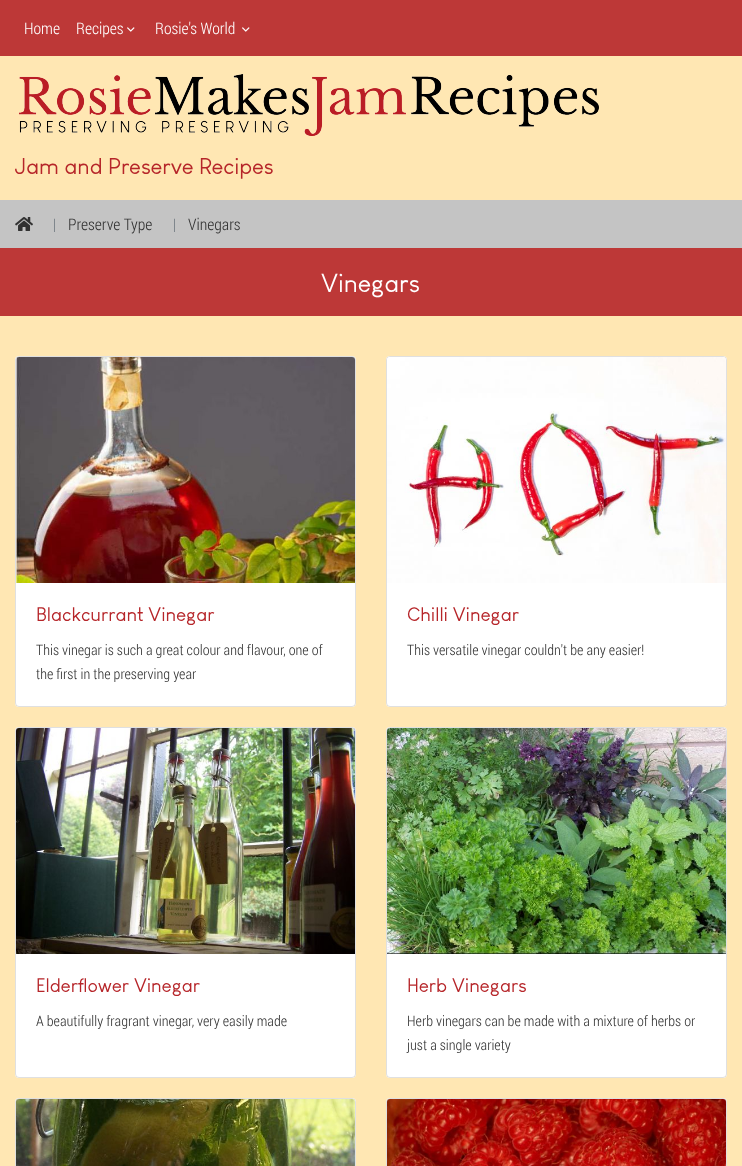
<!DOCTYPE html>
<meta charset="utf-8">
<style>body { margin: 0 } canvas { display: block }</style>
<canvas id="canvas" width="742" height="1166"></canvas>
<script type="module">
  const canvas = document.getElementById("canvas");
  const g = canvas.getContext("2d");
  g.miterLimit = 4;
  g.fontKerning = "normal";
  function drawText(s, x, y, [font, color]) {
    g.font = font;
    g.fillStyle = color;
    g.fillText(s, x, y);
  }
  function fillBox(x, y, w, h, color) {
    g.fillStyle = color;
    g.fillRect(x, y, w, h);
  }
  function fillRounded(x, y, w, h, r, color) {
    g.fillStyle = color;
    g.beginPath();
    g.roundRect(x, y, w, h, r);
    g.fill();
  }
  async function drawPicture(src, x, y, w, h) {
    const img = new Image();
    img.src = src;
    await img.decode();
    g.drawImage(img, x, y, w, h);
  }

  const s1 = ["300 16px Roboto Condensed", "#FFFFFF"];
  const s2 = ["22.4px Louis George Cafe", "#B62529"];
  const s3 = ["300 16px Roboto Condensed", "#6C757D"];
  const s4 = ["300 16px Roboto Condensed", "#323232"];
  const s5 = ["25.5px Louis George Cafe", "#FFFFFF"];
  const s6 = ["19.25px Louis George Cafe", "#B62529"];
  const s7 = ["300 14.4px Roboto Condensed", "#323232"];

  fillBox(0, 0, 742, 1166, "#FFE7B3");
  fillBox(0, 0, 742, 56, "#BD3837");
  drawText("Home", 24, 34, s1);
  drawText("Recipes", 76, 34, s1);
  await drawPicture("pic1.png", 127, 27, 8, 5);
  drawText("Rosie's World", 155, 34, s1);
  await drawPicture("pic1.png", 242, 27, 8, 5);
  await drawPicture("pic2.png", 19, 74, 580, 62);
  drawText("Jam and Preserve Recipes", 15, 174, s2);
  fillBox(0, 200, 742, 48, "#C4C4C4");
  await drawPicture("pic3.png", 15, 217, 18, 14);
  drawText("|", 53, 230, s3);
  drawText("Preserve Type", 68, 230, s4);
  drawText("|", 173, 230, s3);
  drawText("Vinegars", 188, 230, s4);
  fillBox(0, 248, 742, 68, "#BD3837");
  drawText("Vinegars", 321, 292, s5);
  fillRounded(15, 356, 341, 351, 4, "#FFFFFF");
  g.beginPath();
  g.roundRect(15.5, 356.5, 340, 350, 3.5);
  g.strokeStyle = "rgba(0, 0, 0, 0.12)";
  g.stroke();
  await drawPicture("pic4.png", 16, 357, 339, 226);
  drawText("Blackcurrant Vinegar", 36, 621, s6);
  drawText("This vinegar is such a great colour and flavour, one of", 36, 655, s7);
  drawText("the first in the preserving year", 36, 679, s7);
  fillRounded(386, 356, 341, 351, 4, "#FFFFFF");
  g.beginPath();
  g.roundRect(386.5, 356.5, 340, 350, 3.5);
  g.stroke();
  await drawPicture("pic5.png", 387, 357, 339, 226);
  drawText("Chilli Vinegar", 407, 621, s6);
  drawText("This versatile vinegar couldn't be any easier!", 407, 655, s7);
  fillRounded(15, 727, 341, 351, 4, "#FFFFFF");
  g.beginPath();
  g.roundRect(15.5, 727.5, 340, 350, 3.5);
  g.stroke();
  await drawPicture("pic6.png", 16, 728, 339, 226);
  drawText("Elderflower Vinegar", 36, 992, s6);
  drawText("A beautifully fragrant vinegar, very easily made", 36, 1026, s7);
  fillRounded(386, 727, 341, 351, 4, "#FFFFFF");
  g.beginPath();
  g.roundRect(386.5, 727.5, 340, 350, 3.5);
  g.stroke();
  await drawPicture("pic7.png", 387, 728, 339, 226);
  drawText("Herb Vinegars", 407, 992, s6);
  drawText("Herb vinegars can be made with a mixture of herbs or", 407, 1026, s7);
  drawText("just a single variety", 407, 1050, s7);
  fillRounded(15, 1098, 341, 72, 4, "#FFFFFF");
  g.beginPath();
  g.roundRect(15.5, 1098.5, 340, 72, 3.5);
  g.stroke();
  await drawPicture("pic8.png", 16, 1099, 339, 67);
  fillRounded(386, 1098, 341, 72, 4, "#FFFFFF");
  g.beginPath();
  g.roundRect(386.5, 1098.5, 340, 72, 3.5);
  g.stroke();
  await drawPicture("pic9.png", 387, 1099, 339, 67);
</script>
